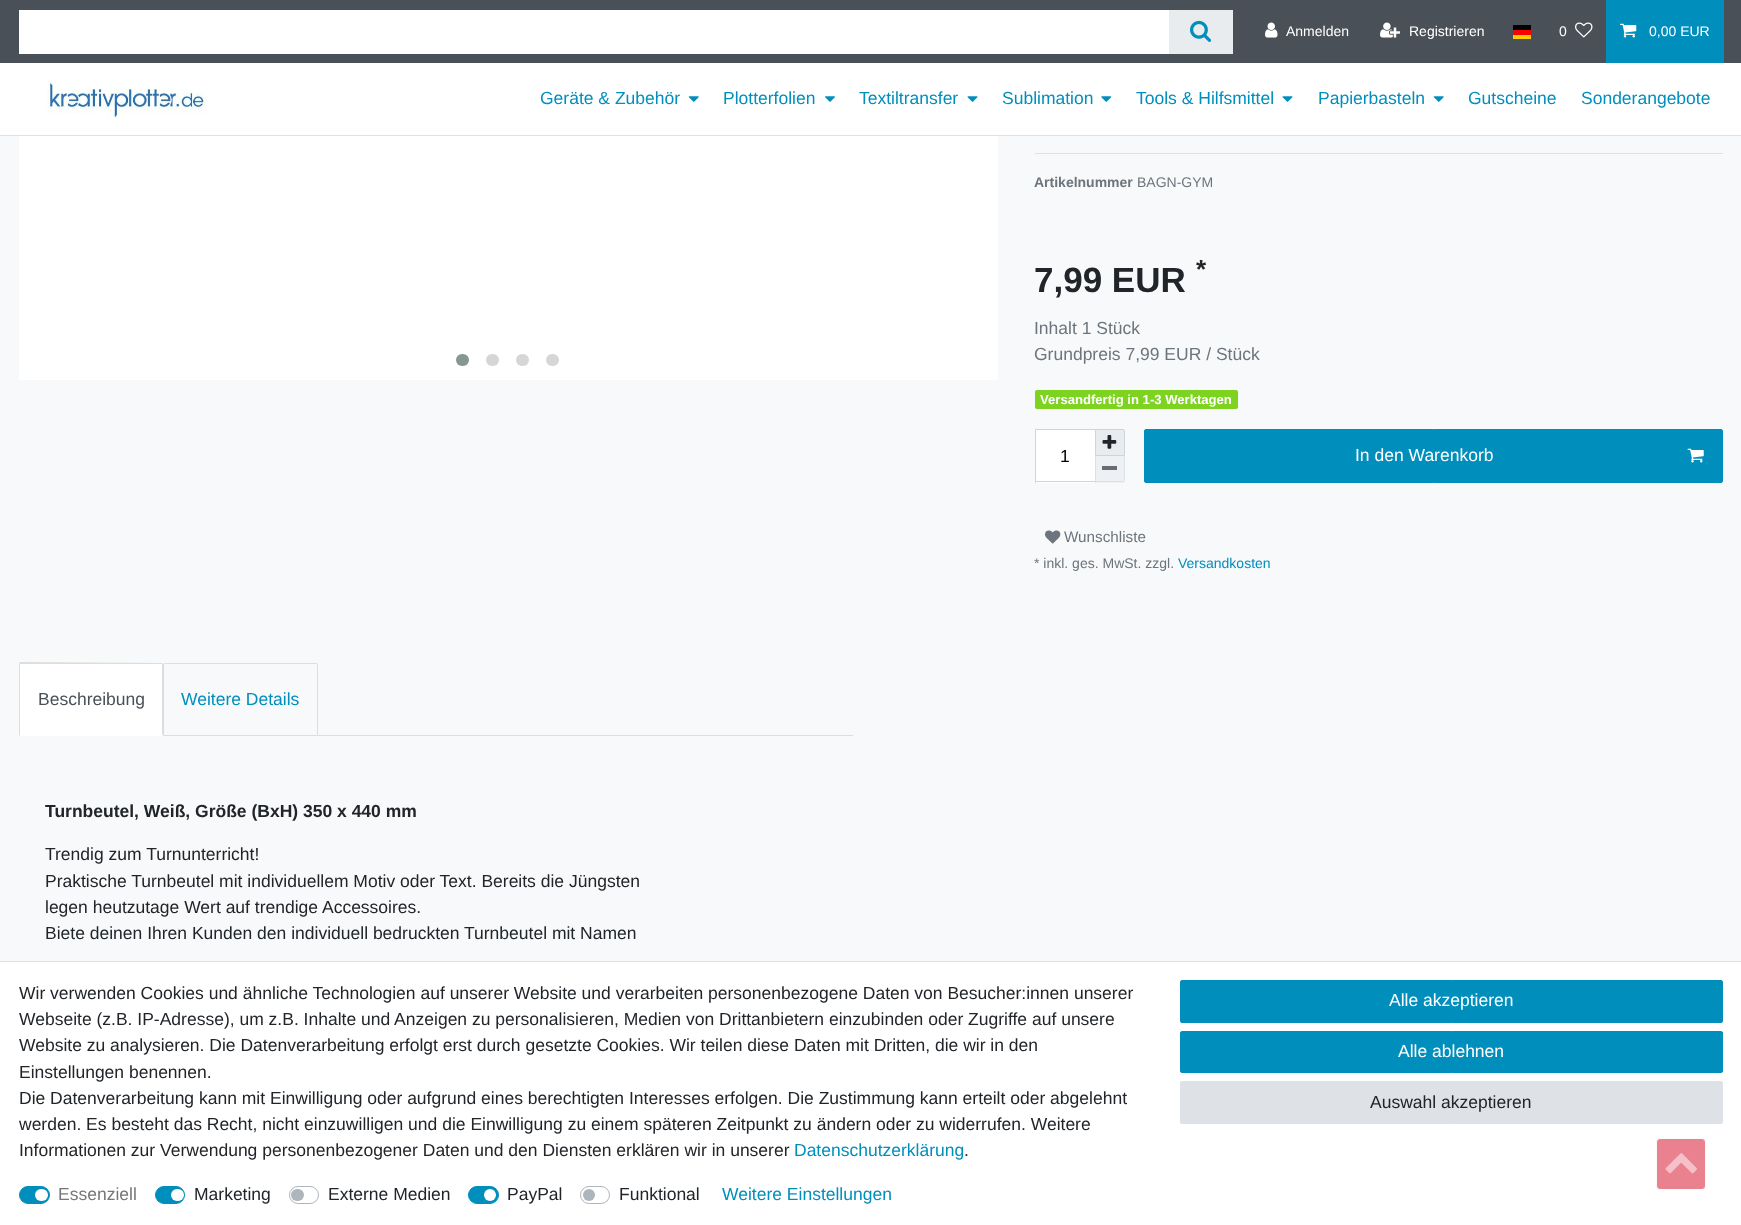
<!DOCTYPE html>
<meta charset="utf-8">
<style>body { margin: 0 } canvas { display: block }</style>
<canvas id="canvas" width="1741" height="1225"></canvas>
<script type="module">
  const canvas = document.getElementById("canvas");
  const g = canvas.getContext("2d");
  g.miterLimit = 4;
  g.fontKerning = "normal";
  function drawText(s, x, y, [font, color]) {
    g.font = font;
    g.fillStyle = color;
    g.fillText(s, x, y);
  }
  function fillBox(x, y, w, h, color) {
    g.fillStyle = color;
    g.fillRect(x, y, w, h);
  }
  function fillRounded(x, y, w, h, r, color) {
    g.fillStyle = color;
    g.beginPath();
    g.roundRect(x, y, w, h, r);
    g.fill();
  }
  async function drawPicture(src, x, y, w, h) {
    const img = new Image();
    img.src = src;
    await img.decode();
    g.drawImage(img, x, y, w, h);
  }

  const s1 = ["14px Liberation Sans", "#FFFFFF"];
  const s2 = ["17.5px Liberation Sans", "#008EBD"];
  const s3 = ["bold 14px Liberation Sans", "#6C757D"];
  const s4 = ["14px Liberation Sans", "#6C757D"];
  const s5 = ["bold 26px Liberation Sans", "#212529"];
  const s6 = ["bold 35px Liberation Sans", "#212529"];
  const s7 = ["17.5px Liberation Sans", "#6C757D"];
  const s8 = ["bold 13.1px Liberation Sans", "#FFFFFF"];
  const s9 = ["17.5px Liberation Sans", "#000000"];
  const s10 = ["17.5px Liberation Sans", "#FFFFFF"];
  const s11 = ["15.25px Liberation Sans", "#6C757D"];
  const s12 = ["14px Liberation Sans", "#008EBD"];
  const s13 = ["17.5px Liberation Sans", "#495057"];
  const s14 = ["bold 17.5px Liberation Sans", "#212529"];
  const s15 = ["17.5px Liberation Sans", "#212529"];
  const s16 = ["17.5px Liberation Sans", "#767676"];

  fillBox(0, 0, 1741, 1225, "#F8F9FA");
  fillBox(0, 0, 1741, 63, "#495057");
  fillBox(19, 10, 1150, 44, "#FFFFFF");
  fillBox(1169, 10, 64, 44, "#E9ECEF");
  await drawPicture("pic1.png", 1190, 20, 22, 22);
  await drawPicture("pic2.png", 1265, 22, 13, 16);
  drawText("Anmelden", 1286, 36, s1);
  await drawPicture("pic3.png", 1380, 22, 20, 16);
  drawText("Registrieren", 1409, 36, s1);
  fillBox(1513, 35, 18, 4, "#FFCC00");
  fillBox(1513, 25, 18, 5, "#000000");
  fillBox(1513, 30, 18, 5, "#FF0000");
  drawText("0", 1559, 36, s1);
  await drawPicture("pic4.png", 1575, 22, 18, 16);
  fillBox(1606, 0, 118, 63, "#008EBD");
  await drawPicture("pic5.png", 1620, 23, 17, 15);
  drawText("0,00 EUR", 1649, 36, s1);
  fillBox(0, 63, 1741, 72, "#FFFFFF");
  fillBox(0, 135, 1741, 1, "#DEE2E6");
  await drawPicture("pic6.png", 45, 81, 162, 41);
  drawText("Geräte & Zubehör", 540, 104, s2);
  await drawPicture("pic7.png", 688, 96, 11, 6);
  drawText("Plotterfolien", 723, 104, s2);
  await drawPicture("pic8.png", 825, 96, 10, 6);
  drawText("Textiltransfer", 859, 104, s2);
  await drawPicture("pic9.png", 967, 96, 11, 6);
  drawText("Sublimation", 1002, 104, s2);
  await drawPicture("pic10.png", 1101, 96, 11, 6);
  drawText("Tools & Hilfsmittel", 1136, 104, s2);
  await drawPicture("pic9.png", 1282, 96, 11, 6);
  drawText("Papierbasteln", 1318, 104, s2);
  await drawPicture("pic7.png", 1433, 96, 11, 6);
  drawText("Gutscheine", 1468, 104, s2);
  drawText("Sonderangebote", 1581, 104, s2);
  fillBox(19, 136, 979, 244, "#FFFFFF");
  fillRounded(456, 354, 13, 12, 6, "#869791");
  fillRounded(486, 354, 13, 12, 6, "#D6D6D6");
  fillRounded(516, 354, 13, 12, 6, "#D6D6D6");
  fillRounded(546, 354, 13, 12, 6, "#D6D6D6");
  fillBox(1035, 153, 688, 1, "#DEE2E6");
  drawText("Artikelnummer", 1034, 187, s3);
  drawText("BAGN-GYM", 1137, 187, s4);
  drawText("*", 1196, 278, s5);
  drawText("7,99 EUR", 1034, 292, s6);
  drawText("Inhalt 1 Stück", 1034, 334, s7);
  drawText("Grundpreis 7,99 EUR / Stück", 1034, 360, s7);
  fillRounded(1035, 390, 203, 19, 2, "#7ED321");
  drawText("Versandfertig in 1-3 Werktagen", 1040, 404, s8);
  fillBox(1036, 430, 59, 53, "#FFFFFF");
  fillBox(1035, 429, 60, 1, "#CED4DA");
  fillBox(1035, 481, 60, 1, "#CED4DA");
  fillBox(1035, 429, 1, 54, "#CED4DA");
  drawText("1", 1060, 462, s9);
  g.fillStyle = "#E9ECEF";
  g.beginPath();
  g.roundRect(1095.5, 429.5, 29, 26, [0, 1.5, 0, 0]);
  g.fill();
  g.strokeStyle = "#CED4DA";
  g.stroke();
  await drawPicture("pic11.png", 1102, 435, 15, 14);
  g.fillStyle = "#EEF1F3";
  g.beginPath();
  g.roundRect(1095, 456, 30, 27, [0, 0, 2, 0]);
  g.fill();
  fillBox(1124, 456, 1, 25, "#DDE1E5");
  fillBox(1095, 481, 29, 1, "#DDE1E5");
  fillBox(1095, 456, 1, 27, "#DDE1E5");
  fillBox(1102, 466, 15, 4, "#696C70");
  g.fillStyle = "#008EBD";
  g.beginPath();
  g.roundRect(1144.5, 429.5, 578, 53, 1.5);
  g.fill();
  g.strokeStyle = "#008EBD";
  g.stroke();
  drawText("In den Warenkorb", 1355, 461, s10);
  await drawPicture("pic12.png", 1687, 448, 17, 15);
  await drawPicture("pic13.png", 1045, 530, 16, 14);
  drawText("Wunschliste", 1064, 542, s11);
  drawText("* inkl. ges. MwSt. zzgl.", 1034, 568, s4);
  drawText("Versandkosten", 1178, 568, s12);
  fillBox(318, 735, 535, 1, "#DDDDDD");
  g.fillStyle = "#FFFFFF";
  g.beginPath();
  g.roundRect(19, 663, 145, 73, [2, 2, 0, 0]);
  g.fill();
  g.fillStyle = "#DDDDDD";
  g.beginPath();
  g.moveTo(19, 663);
  g.lineTo(20, 662);
  g.lineTo(163, 663);
  g.lineTo(162, 664);
  g.lineTo(20, 664);
  g.closePath();
  g.fill();
  g.beginPath();
  g.moveTo(164, 736);
  g.lineTo(162, 734);
  g.lineTo(162, 664);
  g.lineTo(163, 663);
  g.closePath();
  g.fill();
  g.beginPath();
  g.moveTo(20, 664);
  g.lineTo(19, 663);
  g.lineTo(19, 736);
  g.lineTo(20, 735);
  g.closePath();
  g.fill();
  drawText("Beschreibung", 38, 705, s13);
  g.beginPath();
  g.roundRect(163.5, 663.5, 154, 72, [1.5, 1.5, 0, 0]);
  g.strokeStyle = "#DDDDDD";
  g.stroke();
  drawText("Weitere Details", 181, 705, s2);
  drawText("Turnbeutel, Weiß, Größe (BxH) 350 x 440 mm", 45, 817, s14);
  drawText("Trendig zum Turnunterricht!", 45, 860, s15);
  drawText("Praktische Turnbeutel mit individuellem Motiv oder Text. Bereits die Jüngsten", 45, 887, s15);
  drawText("legen heutzutage Wert auf trendige Accessoires.", 45, 913, s15);
  drawText("Biete deinen Ihren Kunden den individuell bedruckten Turnbeutel mit Namen", 45, 939, s15);
  fillBox(0, 962, 1741, 263, "#FFFFFF");
  fillBox(0, 961, 1741, 1, "#DEE2E6");
  drawText("Wir verwenden Cookies und ähnliche Technologien auf unserer Website und verarbeiten personenbezogene Daten von Besucher:innen unserer", 19, 999, s15);
  drawText("Webseite (z.B. IP-Adresse), um z.B. Inhalte und Anzeigen zu personalisieren, Medien von Drittanbietern einzubinden oder Zugriffe auf unsere", 19, 1025, s15);
  drawText("Website zu analysieren. Die Datenverarbeitung erfolgt erst durch gesetzte Cookies. Wir teilen diese Daten mit Dritten, die wir in den", 19, 1051, s15);
  drawText("Einstellungen benennen.", 19, 1078, s15);
  drawText("Die Datenverarbeitung kann mit Einwilligung oder aufgrund eines berechtigten Interesses erfolgen. Die Zustimmung kann erteilt oder abgelehnt", 19, 1104, s15);
  drawText("werden. Es besteht das Recht, nicht einzuwilligen und die Einwilligung zu einem späteren Zeitpunkt zu ändern oder zu widerrufen. Weitere", 19, 1130, s15);
  drawText("Informationen zur Verwendung personenbezogener Daten und den Diensten erklären wir in unserer", 19, 1156, s15);
  drawText("Datenschutzerklärung", 794, 1156, s2);
  drawText(".", 964, 1156, s15);
  g.fillStyle = "#008EBD";
  g.beginPath();
  g.roundRect(19.5, 1186.5, 30, 17, 8.5);
  g.fill();
  g.strokeStyle = "#008EBD";
  g.stroke();
  drawText("Essenziell", 58, 1200, s16);
  fillRounded(35, 1189, 13, 12, 6, "#FFFFFF");
  g.fillStyle = "#008EBD";
  g.beginPath();
  g.roundRect(155.5, 1186.5, 29, 17, 8.5);
  g.fill();
  g.stroke();
  drawText("Marketing", 194, 1200, s15);
  fillRounded(171, 1189, 13, 12, 6, "#FFFFFF");
  g.beginPath();
  g.roundRect(289.5, 1186.5, 29, 17, 8.5);
  g.strokeStyle = "#ADB5BD";
  g.stroke();
  drawText("Externe Medien", 328, 1200, s15);
  fillRounded(291, 1189, 13, 12, 6, "#ADB5BD");
  g.fillStyle = "#008EBD";
  g.beginPath();
  g.roundRect(468.5, 1186.5, 30, 17, 8.5);
  g.fill();
  g.strokeStyle = "#008EBD";
  g.stroke();
  drawText("PayPal", 507, 1200, s15);
  g.fillStyle = "#FFFFFF";
  g.beginPath();
  g.arc(490, 1195, 6, 0, Math.PI * 2);
  g.fill();
  g.beginPath();
  g.roundRect(580.5, 1186.5, 29, 17, 8.5);
  g.strokeStyle = "#ADB5BD";
  g.stroke();
  drawText("Funktional", 619, 1200, s15);
  g.fillStyle = "#ADB5BD";
  g.beginPath();
  g.arc(589, 1195, 6, 0, Math.PI * 2);
  g.fill();
  drawText("Weitere Einstellungen", 722, 1200, s2);
  g.beginPath();
  g.roundRect(1180.5, 980.5, 542, 42, 1.5);
  g.fill();
  g.strokeStyle = "#008EBD";
  g.stroke();
  drawText("Alle akzeptieren", 1389, 1006, s10);
  g.fillStyle = "#008EBD";
  g.beginPath();
  g.roundRect(1180.5, 1031.5, 542, 41, 1.5);
  g.fill();
  g.stroke();
  drawText("Alle ablehnen", 1398, 1057, s10);
  g.fillStyle = "#DEE2E6";
  g.beginPath();
  g.roundRect(1180.5, 1081.5, 542, 42, 1.5);
  g.fill();
  g.strokeStyle = "#DEE2E6";
  g.stroke();
  drawText("Auswahl akzeptieren", 1370, 1108, s15);
  g.fillStyle = "#EA818E";
  g.beginPath();
  g.roundRect(1656.5, 1138.5, 49, 51, 3.5);
  g.fill();
  g.strokeStyle = "#FCFCFD";
  g.stroke();
  await drawPicture("pic14.png", 1665, 1153, 32, 21);
</script>
